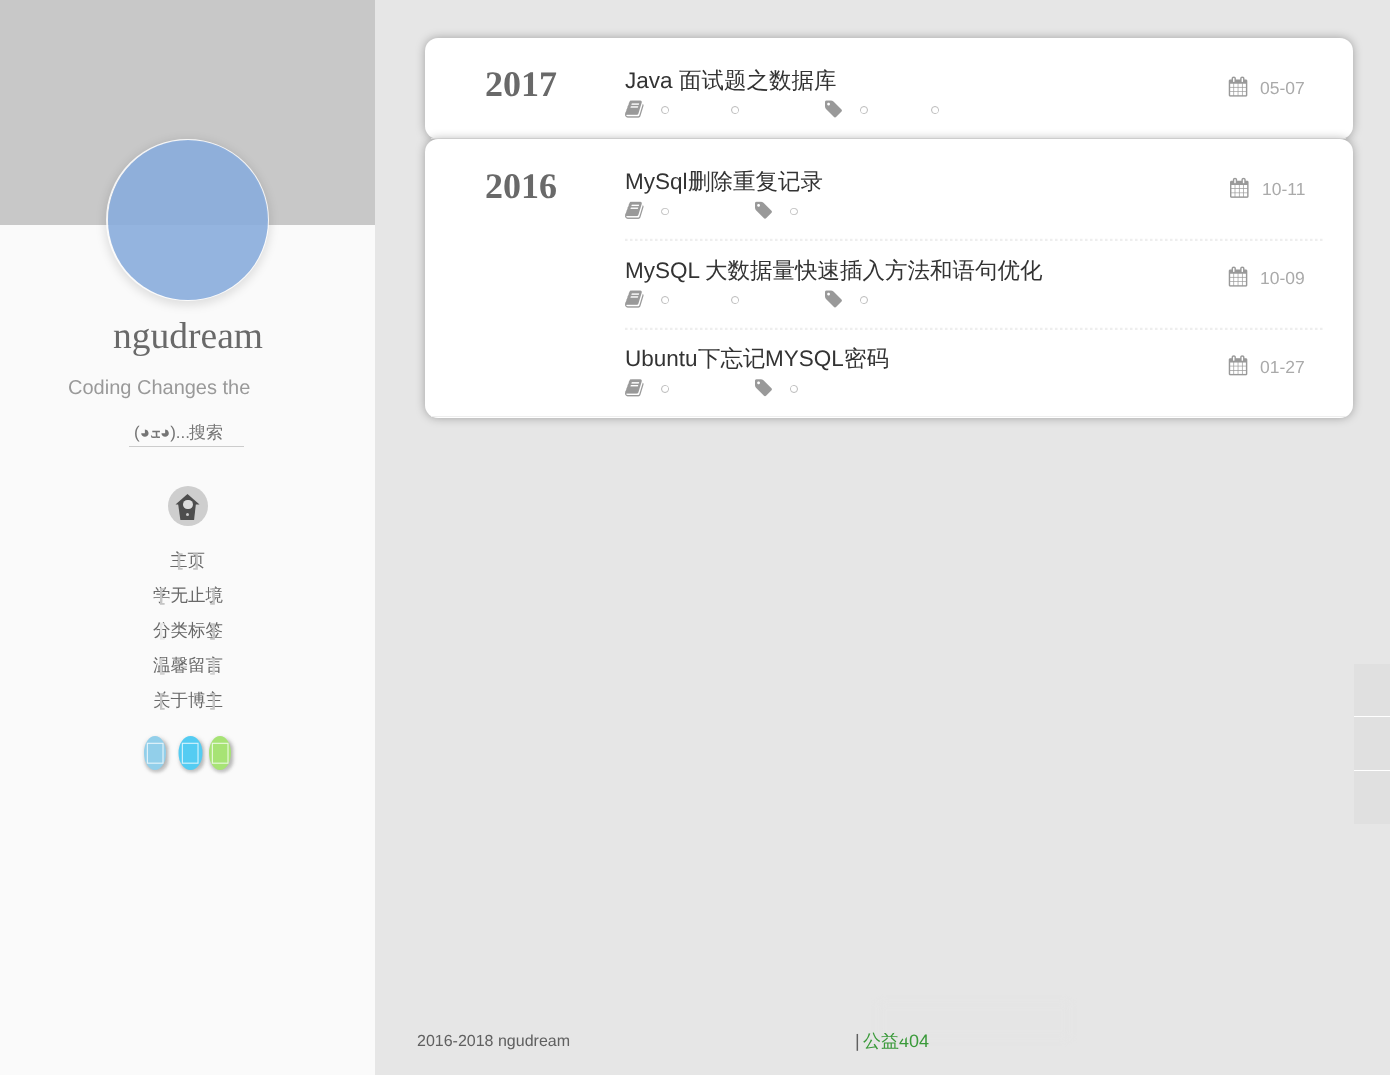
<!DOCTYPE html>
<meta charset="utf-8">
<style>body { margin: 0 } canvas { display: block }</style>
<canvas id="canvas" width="1390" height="1075"></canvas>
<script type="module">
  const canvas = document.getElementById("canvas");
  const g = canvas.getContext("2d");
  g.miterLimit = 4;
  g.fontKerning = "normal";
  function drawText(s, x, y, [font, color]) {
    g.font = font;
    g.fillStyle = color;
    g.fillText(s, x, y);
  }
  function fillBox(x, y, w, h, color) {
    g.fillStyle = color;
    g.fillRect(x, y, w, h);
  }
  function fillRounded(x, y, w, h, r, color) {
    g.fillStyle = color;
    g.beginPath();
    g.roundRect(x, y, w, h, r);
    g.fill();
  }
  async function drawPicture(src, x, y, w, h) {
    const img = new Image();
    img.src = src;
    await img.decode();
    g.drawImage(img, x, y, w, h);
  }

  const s1 = ["37.5px Liberation Serif", "#696969"];
  const s2 = ["20px Liberation Sans", "#999999"];
  const s3 = ["17px Liberation Sans", "#757575"];
  const s4 = ["17px FreeSans", "#757575"];
  const s5 = ["500 17px WenQuanYi Zen Hei", "#757575"];
  const s6 = ["500 17.5px WenQuanYi Zen Hei", "#696969"];
  const s7 = ["bold 17.5px Liberation Sans", "#C5C5C5"];
  const s8 = ["bold 17.5px Liberation Sans", "#E7E7E7"];
  const s9 = ["bold 17.5px Liberation Sans", "#D1D1D1"];
  const s10 = ["bold 36px Liberation Serif", "#696969"];
  const s11 = ["22.5px Liberation Sans", "#333333"];
  const s12 = ["500 22.5px WenQuanYi Zen Hei", "#333333"];
  const s13 = ["17.5px Liberation Sans", "#AAAAAA"];
  const s14 = ["16px Liberation Sans", "#606060"];
  const s15 = ["18px Liberation Sans", "#606060"];
  const s16 = ["500 18px WenQuanYi Zen Hei", "#3A9A3A"];
  const s17 = ["18px Liberation Sans", "#3A9A3A"];

  fillBox(0, 0, 1390, 1075, "#FAFAFA");
  fillBox(0, 0, 375, 225, "#C8C8C8");
  g.save();
  g.beginPath();
  g.moveTo(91, 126);
  g.lineTo(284, 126);
  g.lineTo(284, 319);
  g.lineTo(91, 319);
  g.closePath();
  g.moveTo(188, 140);
  g.bezierCurveTo(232, 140, 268, 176, 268, 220);
  g.bezierCurveTo(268, 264, 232, 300, 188, 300);
  g.bezierCurveTo(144, 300, 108, 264, 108, 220);
  g.bezierCurveTo(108, 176, 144, 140, 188, 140);
  g.closePath();
  g.clip("evenodd");
  g.fillStyle = "rgba(0, 0, 0, 0.1)";
  g.filter = "blur(4px)";
  g.beginPath();
  g.roundRect(104, 139, 167, 167, 83.5);
  g.fill();
  g.filter = "none";
  g.restore();
  g.beginPath();
  g.roundRect(107, 140, 161, 160, 80);
  g.strokeStyle = "rgba(255, 255, 255, 0.85)";
  g.lineWidth = 2;
  g.stroke();
  g.fillStyle = "rgba(136, 172, 219, 0.9)";
  g.beginPath();
  g.arc(188, 220, 80, 0, Math.PI * 2);
  g.fill();
  drawText("ngudream", 113, 348, s1);
  drawText("Coding Changes the", 68, 394, s2);
  fillBox(129, 446, 115, 1, "#CCCCCC");
  g.direction = "rtl";
  drawText("◕)", 150, 438, s3);
  drawText("ܫ", 161, 438, s4);
  drawText("...(◕", 190, 438, s3);
  drawText("搜索", 223, 438, s5);
  g.fillStyle = "#CECECE";
  g.beginPath();
  g.arc(188, 506, 20, 0, Math.PI * 2);
  g.fill();
  g.fillStyle = "#4D4D4D";
  g.beginPath();
  g.moveTo(199.5, 504.5);
  g.lineTo(175.5, 504.5);
  g.lineTo(187.5, 494);
  g.closePath();
  g.fill();
  g.save();
  g.beginPath();
  g.rect(175, 494, 26, 26);
  g.clip();
  g.beginPath();
  g.moveTo(178, 503);
  g.lineTo(196, 503);
  g.lineTo(193.5, 525);
  g.bezierCurveTo(189.5, 526.5, 185, 526, 181, 524.5);
  g.closePath();
  g.fill();
  g.restore();
  fillRounded(183, 500, 10, 9, 4.5, "#DDDDDD");
  g.fillStyle = "#CCCCCC";
  g.beginPath();
  g.arc(187.5, 514.5, 1.5, 0, Math.PI * 2);
  g.fill();
  g.direction = "ltr";
  drawText("主页", 170, 566, s6);
  drawText("[", 177, 566, s7);
  drawText("]", 193, 566, s7);
  drawText("学无止境", 153, 601, s6);
  drawText("[", 159, 601, s7);
  drawText("]", 210, 601, s7);
  drawText("分类标签", 153, 636, s6);
  drawText("[", 159, 636, s8);
  drawText("]", 210, 636, s7);
  drawText("温馨留言", 153, 671, s6);
  drawText("[", 159, 671, s9);
  drawText("]", 210, 671, s9);
  drawText("关于博主", 153, 706, s6);
  drawText("[", 159, 706, s7);
  drawText("]", 210, 706, s7);
  g.fillStyle = "rgba(63, 63, 63, 0.3)";
  g.filter = "blur(2px)";
  g.beginPath();
  g.roundRect(145, 738, 23, 33, 11.5);
  g.fill();
  g.filter = "none";
  g.fillStyle = "rgba(63, 63, 63, 0.1)";
  g.filter = "blur(1px)";
  g.beginPath();
  g.roundRect(145, 739, 23, 34, 11.5);
  g.fill();
  g.filter = "none";
  g.fillStyle = "#92CFEA";
  g.beginPath();
  g.ellipse(155, 753, 11, 17, 0, 0, Math.PI * 2);
  g.fill();
  await drawPicture("pic1.png", 146, 742, 18, 22);
  g.fillStyle = "rgba(63, 63, 63, 0.3)";
  g.filter = "blur(2px)";
  g.beginPath();
  g.roundRect(180, 738, 24, 33, 12);
  g.fill();
  g.filter = "none";
  g.fillStyle = "rgba(63, 63, 63, 0.1)";
  g.filter = "blur(1px)";
  g.beginPath();
  g.roundRect(180, 739, 24, 34, 12);
  g.fill();
  g.filter = "none";
  g.fillStyle = "#54CCF2";
  g.beginPath();
  g.ellipse(190.5, 753, 12, 17, 0, 0, Math.PI * 2);
  g.fill();
  await drawPicture("pic2.png", 181, 742, 18, 22);
  g.fillStyle = "rgba(0, 0, 0, 0.22)";
  g.filter = "blur(2px)";
  g.beginPath();
  g.roundRect(210, 738, 23, 33, 11.5);
  g.fill();
  g.filter = "none";
  g.fillStyle = "rgba(62, 62, 62, 0.1)";
  g.filter = "blur(1px)";
  g.beginPath();
  g.roundRect(210, 739, 23, 34, 11.5);
  g.fill();
  g.filter = "none";
  g.fillStyle = "#A7E375";
  g.beginPath();
  g.ellipse(220, 753, 11, 17, 0, 0, Math.PI * 2);
  g.fill();
  await drawPicture("pic3.png", 211, 742, 18, 22);
  fillBox(375, 0, 1015, 1075, "#E6E6E6");
  g.fillStyle = "rgba(0, 0, 0, 0.3)";
  g.filter = "blur(5px)";
  g.beginPath();
  g.roundRect(425, 38, 928, 101, 13);
  g.fill();
  g.filter = "none";
  fillRounded(425, 38, 928, 101, 13, "#FFFFFF");
  fillBox(431, 138, 915, 1, "#EEEEEE");
  drawText("2017", 485, 96, s10);
  drawText("Java", 625, 88, s11);
  drawText("面试题之数据库", 679, 88, s12);
  await drawPicture("pic4.png", 1228, 76, 20, 21);
  drawText("05-07", 1260, 94, s13);
  await drawPicture("pic5.png", 625, 100, 19, 18);
  g.beginPath();
  g.arc(665, 110, 3.5, 0, Math.PI * 2);
  g.strokeStyle = "#BABABA";
  g.lineWidth = 1;
  g.stroke();
  g.fillStyle = "#FFFFFF";
  g.beginPath();
  g.arc(665.5, 110.5, 2.5, 0, Math.PI * 2);
  g.fill();
  g.beginPath();
  g.arc(735, 110, 3.5, 0, Math.PI * 2);
  g.stroke();
  g.beginPath();
  g.arc(735.5, 110.5, 2.5, 0, Math.PI * 2);
  g.fill();
  await drawPicture("pic6.png", 825, 100, 17, 18);
  g.beginPath();
  g.arc(864, 110, 3.5, 0, Math.PI * 2);
  g.stroke();
  g.beginPath();
  g.arc(863.5, 110.5, 2.5, 0, Math.PI * 2);
  g.fill();
  g.beginPath();
  g.arc(935, 110, 3.5, 0, Math.PI * 2);
  g.stroke();
  g.beginPath();
  g.arc(935.5, 110.5, 2.5, 0, Math.PI * 2);
  g.fill();
  g.fillStyle = "rgba(0, 0, 0, 0.3)";
  g.filter = "blur(5px)";
  g.beginPath();
  g.roundRect(425, 139, 928, 279, 13);
  g.fill();
  g.filter = "none";
  fillRounded(425, 139, 928, 279, 13, "#FFFFFF");
  fillBox(431, 416, 915, 1, "#EEEEEE");
  drawText("2016", 485, 198, s10);
  g.beginPath();
  g.moveTo(625, 240);
  g.lineTo(1322.5, 240);
  g.strokeStyle = "#EEEEEE";
  g.lineWidth = 2.5;
  g.setLineDash([2.5, 2.5]);
  g.stroke();
  drawText("MySql", 625, 189, s11);
  drawText("删除重复记录", 688, 189, s12);
  await drawPicture("pic7.png", 1230, 177, 19, 21);
  drawText("10-11", 1262, 195, s13);
  await drawPicture("pic8.png", 625, 201, 19, 18);
  g.beginPath();
  g.roundRect(661.5, 208.5, 7, 6, 3);
  g.strokeStyle = "#BABABA";
  g.lineWidth = 1;
  g.setLineDash([]);
  g.stroke();
  g.fillStyle = "#FFFFFF";
  g.beginPath();
  g.arc(665.5, 211.5, 2.5, 0, Math.PI * 2);
  g.fill();
  await drawPicture("pic9.png", 755, 201, 17, 18);
  g.beginPath();
  g.roundRect(790.5, 208.5, 7, 6, 3);
  g.stroke();
  g.beginPath();
  g.arc(793.5, 211.5, 2.5, 0, Math.PI * 2);
  g.fill();
  fillBox(625, 241, 698, 1, "#FFFFFF");
  g.beginPath();
  g.moveTo(625, 329);
  g.lineTo(1322.5, 329);
  g.strokeStyle = "#EEEEEE";
  g.lineWidth = 2.5;
  g.setLineDash([2.5, 2.5]);
  g.stroke();
  drawText("MySQL", 625, 278, s11);
  drawText("大数据量快速插入方法和语句优化", 705, 278, s12);
  await drawPicture("pic4.png", 1228, 266, 20, 21);
  drawText("10-09", 1260, 284, s13);
  await drawPicture("pic5.png", 625, 290, 19, 18);
  g.beginPath();
  g.arc(665, 300, 3.5, 0, Math.PI * 2);
  g.strokeStyle = "#BABABA";
  g.lineWidth = 1;
  g.setLineDash([]);
  g.stroke();
  g.fillStyle = "#FFFFFF";
  g.beginPath();
  g.arc(665.5, 300.5, 2.5, 0, Math.PI * 2);
  g.fill();
  g.beginPath();
  g.arc(735, 300, 3.5, 0, Math.PI * 2);
  g.stroke();
  g.beginPath();
  g.arc(735.5, 300.5, 2.5, 0, Math.PI * 2);
  g.fill();
  await drawPicture("pic6.png", 825, 290, 17, 18);
  g.beginPath();
  g.arc(864, 300, 3.5, 0, Math.PI * 2);
  g.stroke();
  g.beginPath();
  g.arc(863.5, 300.5, 2.5, 0, Math.PI * 2);
  g.fill();
  fillBox(625, 330, 698, 1, "#FFFFFF");
  drawText("Ubuntu", 625, 366, s11);
  drawText("下忘记", 698, 366, s12);
  drawText("MYSQL", 765, 366, s11);
  drawText("密码", 844, 366, s12);
  await drawPicture("pic10.png", 1228, 355, 20, 21);
  drawText("01-27", 1260, 373, s13);
  await drawPicture("pic11.png", 625, 379, 19, 18);
  g.beginPath();
  g.arc(665, 389, 3.5, 0, Math.PI * 2);
  g.stroke();
  g.fillStyle = "#FFFFFF";
  g.beginPath();
  g.arc(665.5, 388.5, 2.5, 0, Math.PI * 2);
  g.fill();
  await drawPicture("pic12.png", 755, 379, 17, 18);
  g.beginPath();
  g.arc(794, 389, 3.5, 0, Math.PI * 2);
  g.stroke();
  g.beginPath();
  g.arc(793.5, 388.5, 2.5, 0, Math.PI * 2);
  g.fill();
  drawText("2016-2018 ngudream", 417, 1046, s14);
  drawText("|", 855, 1047, s15);
  g.fillStyle = "rgba(230, 230, 230, 0.3)";
  g.filter = "blur(5px)";
  g.beginPath();
  g.rect(879, 1003, 190, 35);
  g.fill();
  g.filter = "none";
  drawText("公益", 863, 1047, s16);
  fillBox(874, 1032, 20, 1, "#E6E6E6");
  drawText("404", 899, 1047, s17);
  g.fillStyle = "#E6E6E6";
  g.beginPath();
  g.moveTo(896, 1032.5);
  g.lineTo(911, 1032.5);
  g.lineTo(904, 1040);
  g.closePath();
  g.fill();
  fillBox(1354, 664, 36, 106, "#E0E0E0");
  fillBox(1354, 716, 36, 1, "#FFFFFF");
  fillBox(1354, 770, 36, 1, "#FFFFFF");
  fillBox(1354, 771, 36, 53, "#E0E0E0");
</script>
